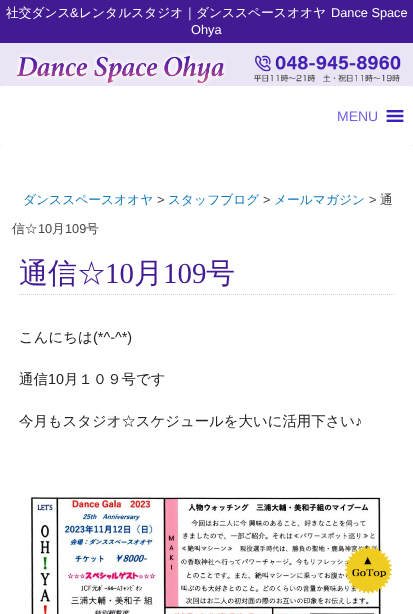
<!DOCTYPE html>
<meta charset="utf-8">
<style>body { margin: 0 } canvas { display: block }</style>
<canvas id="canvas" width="413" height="614"></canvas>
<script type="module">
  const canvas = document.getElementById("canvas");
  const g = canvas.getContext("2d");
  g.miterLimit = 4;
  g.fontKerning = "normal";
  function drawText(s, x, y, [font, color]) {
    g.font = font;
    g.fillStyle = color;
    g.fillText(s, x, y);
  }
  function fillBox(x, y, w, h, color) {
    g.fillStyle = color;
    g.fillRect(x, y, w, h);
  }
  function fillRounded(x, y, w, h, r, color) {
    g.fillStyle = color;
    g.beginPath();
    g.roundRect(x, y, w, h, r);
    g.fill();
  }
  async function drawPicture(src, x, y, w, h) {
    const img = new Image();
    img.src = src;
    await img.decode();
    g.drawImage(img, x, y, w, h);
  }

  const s1 = ["500 12.75px WenQuanYi Zen Hei", "#FFFFFF"];
  const s2 = ["12.75px Liberation Sans", "#FFFFFF"];
  const s3 = ["14px Liberation Sans", "#715FE2"];
  const s4 = ["500 12.75px WenQuanYi Zen Hei", "#157BBB"];
  const s5 = ["12.75px Liberation Sans", "#444444"];
  const s6 = ["500 12.75px WenQuanYi Zen Hei", "#444444"];
  const s7 = ["500 29px WenQuanYi Zen Hei", "#421B93"];
  const s8 = ["29px Liberation Serif", "#421B93"];
  const s9 = ["500 14.4px WenQuanYi Zen Hei", "#222222"];
  const s10 = ["14.4px Liberation Sans", "#222222"];

  fillBox(0, 0, 413, 614, "#EAE5F4");
  fillBox(0, 0, 413, 43, "#421B93");
  drawText("社交ダンス", 6, 17, s1);
  drawText("&", 70, 17, s2);
  drawText("レンタルスタジオ｜ダンススペースオオヤ", 79, 17, s1);
  drawText("Dance Space", 331, 17, s2);
  drawText("Ohya", 191, 34, s2);
  await drawPicture("pic1.png", 16, 53, 210, 33);
  await drawPicture("pic2.png", 253, 55, 148, 27);
  fillRounded(0, 86, 413, 60, 2, "#FFFFFF");
  drawText("MENU", 337, 121, s3);
  await drawPicture("pic3.png", 386, 110, 18, 12);
  fillBox(0, 146, 413, 468, "#FFFFFF");
  drawText("ダンススペースオオヤ", 23, 204, s4);
  drawText(">", 157, 204, s5);
  drawText("スタッフブログ", 168, 204, s4);
  drawText(">", 263, 204, s5);
  drawText("メールマガジン", 274, 204, s4);
  drawText(">", 369, 204, s5);
  drawText("通", 380, 204, s6);
  drawText("信☆", 12, 233, s6);
  drawText("10", 38, 233, s5);
  drawText("月", 52, 233, s6);
  drawText("109", 65, 233, s5);
  drawText("号", 86, 233, s6);
  g.beginPath();
  g.moveTo(19, 294.5);
  g.lineTo(394, 294.5);
  g.strokeStyle = "#CCCCCC";
  g.setLineDash([1, 1]);
  g.stroke();
  drawText("通信☆", 19, 283, s7);
  drawText("10", 105, 283, s8);
  drawText("月", 134, 283, s7);
  drawText("109", 163, 283, s8);
  drawText("号", 206, 283, s7);
  drawText("こんにちは", 19, 342, s9);
  drawText("(*^-^*)", 93, 342, s10);
  drawText("通信", 19, 384, s9);
  drawText("10", 48, 384, s10);
  drawText("月１０９号です", 64, 384, s9);
  drawText("今月もスタジオ☆スケジュールを大いに活用下さい", 19, 426, s9);
  drawText("♪", 355, 426, s10);
  await drawPicture("pic4.png", 30, 493, 354, 121);
  await drawPicture("pic5.png", 344, 545, 49, 49);
</script>
